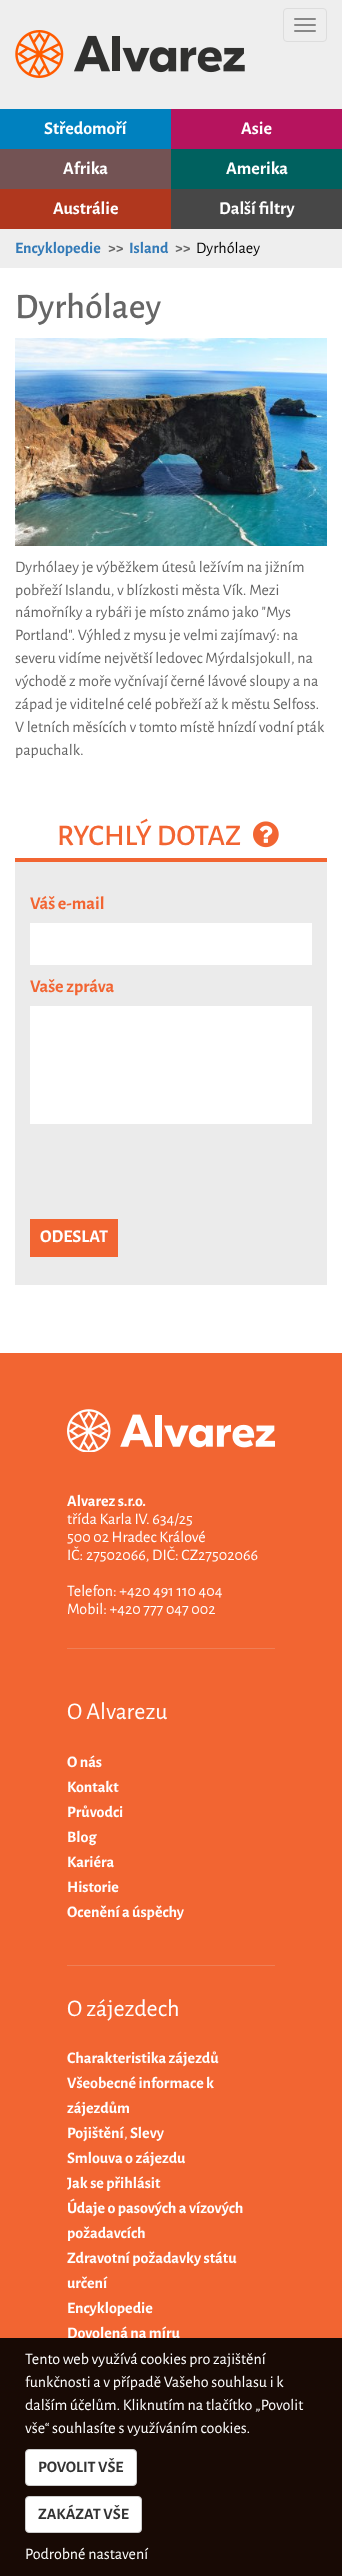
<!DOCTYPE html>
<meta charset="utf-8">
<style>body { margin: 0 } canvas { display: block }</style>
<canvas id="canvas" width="342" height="2576"></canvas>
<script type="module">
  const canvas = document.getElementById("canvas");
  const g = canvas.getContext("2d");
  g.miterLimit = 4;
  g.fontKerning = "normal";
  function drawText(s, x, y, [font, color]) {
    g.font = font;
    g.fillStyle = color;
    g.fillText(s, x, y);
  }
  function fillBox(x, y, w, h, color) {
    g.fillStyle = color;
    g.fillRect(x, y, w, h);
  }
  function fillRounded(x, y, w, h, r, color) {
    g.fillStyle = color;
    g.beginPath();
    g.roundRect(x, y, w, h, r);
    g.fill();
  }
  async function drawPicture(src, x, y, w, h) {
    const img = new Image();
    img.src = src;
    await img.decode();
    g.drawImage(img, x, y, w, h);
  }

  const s1 = ["bold 18px Alegreya Sans", "#FFFFFF"];
  const s2 = ["bold 16px Alegreya Sans", "#337AB7"];
  const s3 = ["bold 16px Alegreya Sans", "#666666"];
  const s4 = ["16px Alegreya Sans", "#000000"];
  const s5 = ["500 36px Alegreya Sans", "#666666"];
  const s6 = ["16px Alegreya Sans", "#666666"];
  const s7 = ["500 30px Alegreya Sans", "#F26532"];
  const s8 = ["bold 18px Alegreya Sans", "#F26532"];
  const s9 = ["bold 16px Alegreya Sans", "#FFFFFF"];
  const s10 = ["16px Alegreya Sans", "#FFFFFF"];
  const s11 = ["24px Alegreya Sans", "#FFFFFF"];
  const s12 = ["bold 16px Alegreya Sans", "#333333"];

  fillBox(0, 0, 342, 2576, "#FFFFFF");
  fillBox(0, 0, 342, 109, "#EEEEEE");
  g.beginPath();
  g.roundRect(283.5, 8.5, 43, 33, 3.5);
  g.strokeStyle = "#DDDDDD";
  g.stroke();
  fillRounded(294, 18, 22, 2, 1, "#888888");
  fillRounded(294, 24, 22, 2, 1, "#888888");
  fillRounded(294, 30, 22, 2, 1, "#888888");
  await drawPicture("pic1.png", 15, 30, 230, 48);
  fillBox(0, 109, 171, 40, "#0081BF");
  drawText("Středomoří", 44, 134, s1);
  fillBox(171, 109, 171, 40, "#B6145E");
  drawText("Asie", 241, 134, s1);
  fillBox(0, 149, 171, 40, "#735354");
  drawText("Afrika", 63, 174, s1);
  fillBox(171, 149, 171, 40, "#00615F");
  drawText("Amerika", 226, 174, s1);
  fillBox(0, 189, 171, 40, "#B0371E");
  drawText("Austrálie", 53, 214, s1);
  fillBox(171, 189, 171, 40, "#474747");
  drawText("Další filtry", 219, 214, s1);
  fillBox(0, 229, 342, 39, "#EEEEEE");
  drawText("Encyklopedie", 15, 253, s2);
  drawText(">>", 108, 253, s3);
  drawText("Island", 129, 253, s2);
  drawText(">>", 175, 253, s3);
  drawText("Dyrhólaey", 196, 253, s4);
  drawText("Dyrhólaey", 15, 318, s5);
  await drawPicture("pic2.png", 15, 338, 312, 208);
  drawText("Dyrhólaey je výběžkem útesů ležívím na jižním", 15, 572, s6);
  drawText("pobřeží Islandu, v blízkosti města Vík. Mezi", 15, 595, s6);
  drawText("námořníky a rybáři je místo známo jako \"Mys", 15, 617, s6);
  drawText("Portland\". Výhled z mysu je velmi zajímavý: na", 15, 640, s6);
  drawText("severu vidíme největší ledovec Mýrdalsjokull, na", 15, 663, s6);
  drawText("východě z moře vyčnívají černé lávové sloupy a na", 15, 686, s6);
  drawText("západ je viditelné celé pobřeží až k městu Selfoss.", 15, 709, s6);
  drawText("V letních měsících v tomto místě hnízdí vodní pták", 15, 732, s6);
  drawText("papuchalk.", 15, 755, s6);
  drawText("RYCHLÝ DOTAZ", 57, 845, s7);
  await drawPicture("pic3.png", 253, 821, 26, 27);
  fillBox(15, 862, 312, 423, "#EBEBEB");
  fillBox(15, 858, 312, 4, "#F26532");
  drawText("Váš e-mail", 30, 909, s8);
  fillBox(30, 923, 282, 42, "#FFFFFF");
  drawText("Vaše zpráva", 30, 992, s8);
  fillBox(30, 1006, 282, 118, "#FFFFFF");
  fillBox(30, 1219, 88, 38, "#F26532");
  drawText("ODESLAT", 40, 1242, s1);
  fillBox(0, 1353, 342, 1223, "#F26532");
  fillBox(67, 1648, 208, 1, "#EF7E55");
  await drawPicture("pic4.png", 67, 1409, 208, 43);
  drawText("Alvarez s.r.o.", 67, 1506, s9);
  drawText("třída Karla IV. 634/25", 67, 1524, s10);
  drawText("500 02 Hradec Králové", 67, 1542, s10);
  drawText("IČ: 27502066, DIČ: CZ27502066", 67, 1560, s10);
  drawText("Telefon: +420 491 110 404", 67, 1596, s10);
  drawText("Mobil: +420 777 047 002", 67, 1614, s10);
  fillBox(67, 1965, 208, 1, "#EF7E55");
  drawText("O Alvarezu", 67, 1719, s11);
  drawText("O nás", 67, 1767, s9);
  drawText("Kontakt", 67, 1792, s9);
  drawText("Průvodci", 67, 1817, s9);
  drawText("Blog", 67, 1842, s9);
  drawText("Kariéra", 67, 1867, s9);
  drawText("Historie", 67, 1892, s9);
  drawText("Ocenění a úspěchy", 67, 1917, s9);
  fillBox(67, 2386, 208, 1, "#EF7E55");
  drawText("O zájezdech", 67, 2016, s11);
  drawText("Charakteristika zájezdů", 67, 2063, s9);
  drawText("Všeobecné informace k", 67, 2088, s9);
  drawText("zájezdům", 67, 2113, s9);
  drawText("Pojištění", 67, 2138, s9);
  drawText(",", 124, 2138, s10);
  drawText("Slevy", 130, 2138, s9);
  drawText("Smlouva o zájezdu", 67, 2163, s9);
  drawText("Jak se přihlásit", 67, 2188, s9);
  drawText("Údaje o pasových a vízových", 67, 2213, s9);
  drawText("požadavcích", 67, 2238, s9);
  drawText("Zdravotní požadavky státu", 67, 2263, s9);
  drawText("určení", 67, 2288, s9);
  drawText("Encyklopedie", 67, 2313, s9);
  drawText("Dovolená na míru", 67, 2338, s9);
  fillBox(0, 2338, 342, 238, "rgba(0, 0, 0, 0.9)");
  drawText("Tento web využívá cookies pro zajištění", 25, 2364, s10);
  drawText("funkčnosti a v případě Vašeho souhlasu i k", 25, 2387, s10);
  drawText("dalším účelům. Kliknutím na tlačítko „Povolit", 25, 2410, s10);
  drawText("vše“ souhlasíte s využíváním cookies.", 25, 2433, s10);
  g.beginPath();
  g.roundRect(25.5, 2449.5, 111, 36, 3.5);
  g.fill();
  g.strokeStyle = "#CCCCCC";
  g.stroke();
  drawText("POVOLIT VŠE", 38, 2472, s12);
  g.fillStyle = "#FFFFFF";
  g.beginPath();
  g.roundRect(25.5, 2496.5, 116, 36, 3.5);
  g.fill();
  g.stroke();
  drawText("ZAKÁZAT VŠE", 38, 2519, s12);
  drawText("Podrobné nastavení", 25, 2559, s10);
</script>
